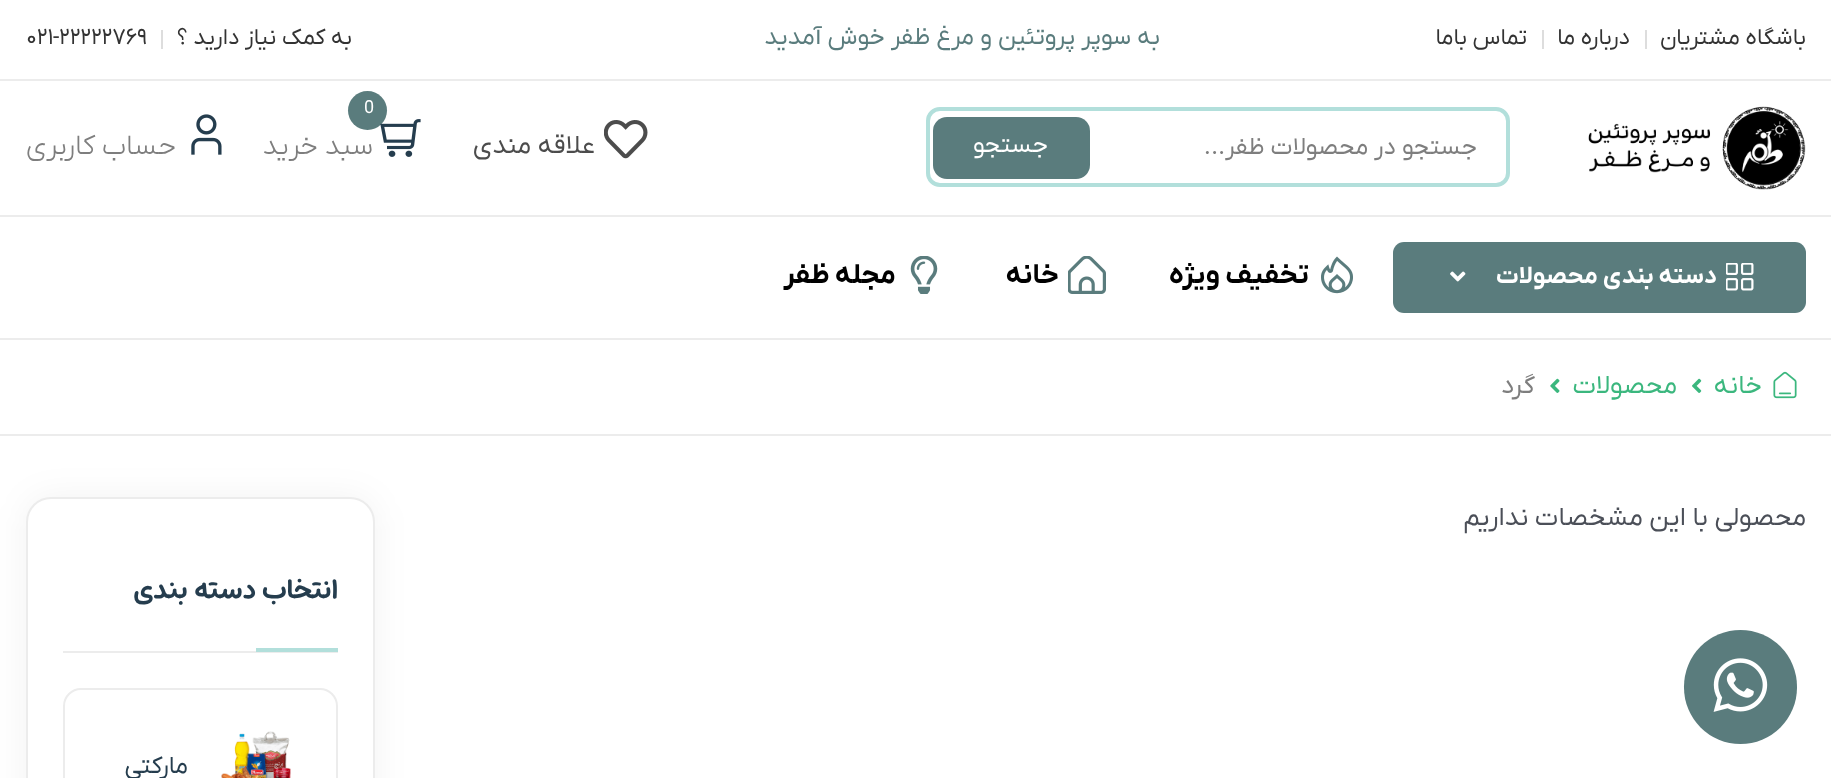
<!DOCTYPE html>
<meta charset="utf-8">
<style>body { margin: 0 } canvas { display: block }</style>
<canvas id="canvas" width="1831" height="778"></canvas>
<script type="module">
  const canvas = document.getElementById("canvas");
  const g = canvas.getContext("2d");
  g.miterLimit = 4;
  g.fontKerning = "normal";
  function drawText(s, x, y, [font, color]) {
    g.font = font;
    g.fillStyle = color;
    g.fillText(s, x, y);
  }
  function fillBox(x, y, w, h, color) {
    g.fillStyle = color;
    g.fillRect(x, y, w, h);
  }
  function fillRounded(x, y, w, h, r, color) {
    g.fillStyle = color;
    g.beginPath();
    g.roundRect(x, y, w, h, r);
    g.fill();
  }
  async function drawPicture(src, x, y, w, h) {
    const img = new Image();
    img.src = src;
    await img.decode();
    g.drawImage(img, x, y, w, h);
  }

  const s1 = ["22.75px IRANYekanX", "#333333"];
  const s2 = ["24.5px IRANYekanX", "#5A7C7D"];
  const s3 = ["22.75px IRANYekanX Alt", "#333333"];
  const s4 = ["24.5px IRANYekanX", "#7E7E7E"];
  const s5 = ["24.5px IRANYekanX", "#FFFFFF"];
  const s6 = ["18px IRANYekanX", "#FFFFFF"];
  const s7 = ["26.25px IRANYekanX", "#4C4C4C"];
  const s8 = ["300 28px IRANYekanX", "#7E7E7E"];
  const s9 = ["bold 24.5px IRANYekanX", "#FFFFFF"];
  const s10 = ["bold 28px IRANYekanX", "#000000"];
  const s11 = ["26.25px IRANYekanX", "#3BB77E"];
  const s12 = ["26.25px IRANYekanX", "#7E7E7E"];
  const s13 = ["26.25px IRANYekanX", "#4B4F58"];
  const s14 = ["bold 28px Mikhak", "#253D4E"];
  const s15 = ["24.5px IRANYekanX", "#253D4E"];

  fillBox(0, 0, 1831, 778, "#FFFFFF");
  g.direction = "rtl";
  drawText("باشگاه مشتریان", 1806, 44, s1);
  fillBox(1645, 30, 2, 19, "#DDDDDD");
  drawText("درباره ما", 1630, 44, s1);
  fillBox(1542, 30, 2, 19, "#DDDDDD");
  drawText("تماس باما", 1527, 44, s1);
  drawText("به سوپر پروتئین و مرغ ظفر خوش آمدید", 1160, 44, s2);
  drawText("به کمک نیاز دارید ؟", 352, 44, s1);
  fillBox(161, 30, 2, 19, "#DDDDDD");
  g.direction = "ltr";
  drawText("021-22222769", 26, 44, s3);
  fillBox(0, 79, 1831, 2, "#ECECEC");
  fillBox(0, 215, 1831, 2, "#ECECEC");
  await drawPicture("pic1.png", 1588, 106, 218, 84);
  g.beginPath();
  g.roundRect(928, 109, 580, 76, 12);
  g.strokeStyle = "#B2DFDB";
  g.lineWidth = 4;
  g.stroke();
  g.direction = "rtl";
  drawText("جستجو در محصولات ظفر...", 1477, 154, s4);
  fillRounded(933, 117, 157, 62, 14, "#5A7C7D");
  drawText("جستجو", 1048, 152, s5);
  g.fillStyle = "#5A7C7D";
  g.beginPath();
  g.arc(367.5, 110.5, 19.5, 0, Math.PI * 2);
  g.fill();
  g.direction = "ltr";
  drawText("0", 364, 113, s6);
  await drawPicture("pic2.png", 380, 119, 41, 38);
  await drawPicture("pic3.png", 604, 120, 44, 39);
  g.direction = "rtl";
  drawText("علاقه مندی", 595, 153, s7);
  drawText("سبد خرید", 373, 154, s8);
  await drawPicture("pic4.png", 191, 114, 31, 41);
  drawText("حساب کاربری", 176, 154, s8);
  fillBox(0, 338, 1831, 2, "#ECECEC");
  fillRounded(1393, 242, 413, 71, 11, "#5A7C7D");
  await drawPicture("pic5.png", 1726, 263, 28, 28);
  drawText("دسته بندی محصولات", 1717, 283, s9);
  await drawPicture("pic6.png", 1450, 271, 16, 11);
  await drawPicture("pic7.png", 1321, 256, 32, 38);
  drawText("تخفیف ویژه", 1309, 283, s10);
  await drawPicture("pic8.png", 1068, 256, 38, 38);
  drawText("خانه", 1059, 283, s10);
  await drawPicture("pic9.png", 910, 256, 28, 38);
  drawText("مجله ظفر", 896, 283, s10);
  fillBox(0, 434, 1831, 2, "#ECECEC");
  await drawPicture("pic10.png", 1773, 371, 24, 28);
  drawText("خانه", 1762, 393, s11);
  await drawPicture("pic11.png", 1692, 378, 10, 15);
  drawText("محصولات", 1677, 393, s11);
  await drawPicture("pic12.png", 1550, 378, 10, 15);
  drawText("گرد", 1535, 393, s12);
  drawText("محصولی با این مشخصات نداریم", 1806, 525, s13);
  g.fillStyle = "rgba(0, 0, 0, 0.05)";
  g.filter = "blur(17.5px)";
  g.beginPath();
  g.roundRect(26, 497, 349, 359, 25);
  g.fill();
  g.filter = "none";
  g.fillStyle = "#FFFFFF";
  g.beginPath();
  g.roundRect(27, 498, 347, 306, 24);
  g.fill();
  g.strokeStyle = "#ECECEC";
  g.lineWidth = 2;
  g.stroke();
  drawText("انتخاب دسته بندی", 338, 597, s14);
  fillBox(63, 651, 275, 2, "#ECECEC");
  fillBox(256, 648, 82, 4, "#B2DFDB");
  g.beginPath();
  g.roundRect(64, 689, 273, 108, 17);
  g.stroke();
  await drawPicture("pic13.png", 221, 731, 70, 47);
  drawText("مارکتی", 188, 773, s15);
  fillRounded(1684, 630, 113, 114, 56.5, "#5A7C7D");
  await drawPicture("pic14.png", 1713, 658, 55, 54);
</script>
